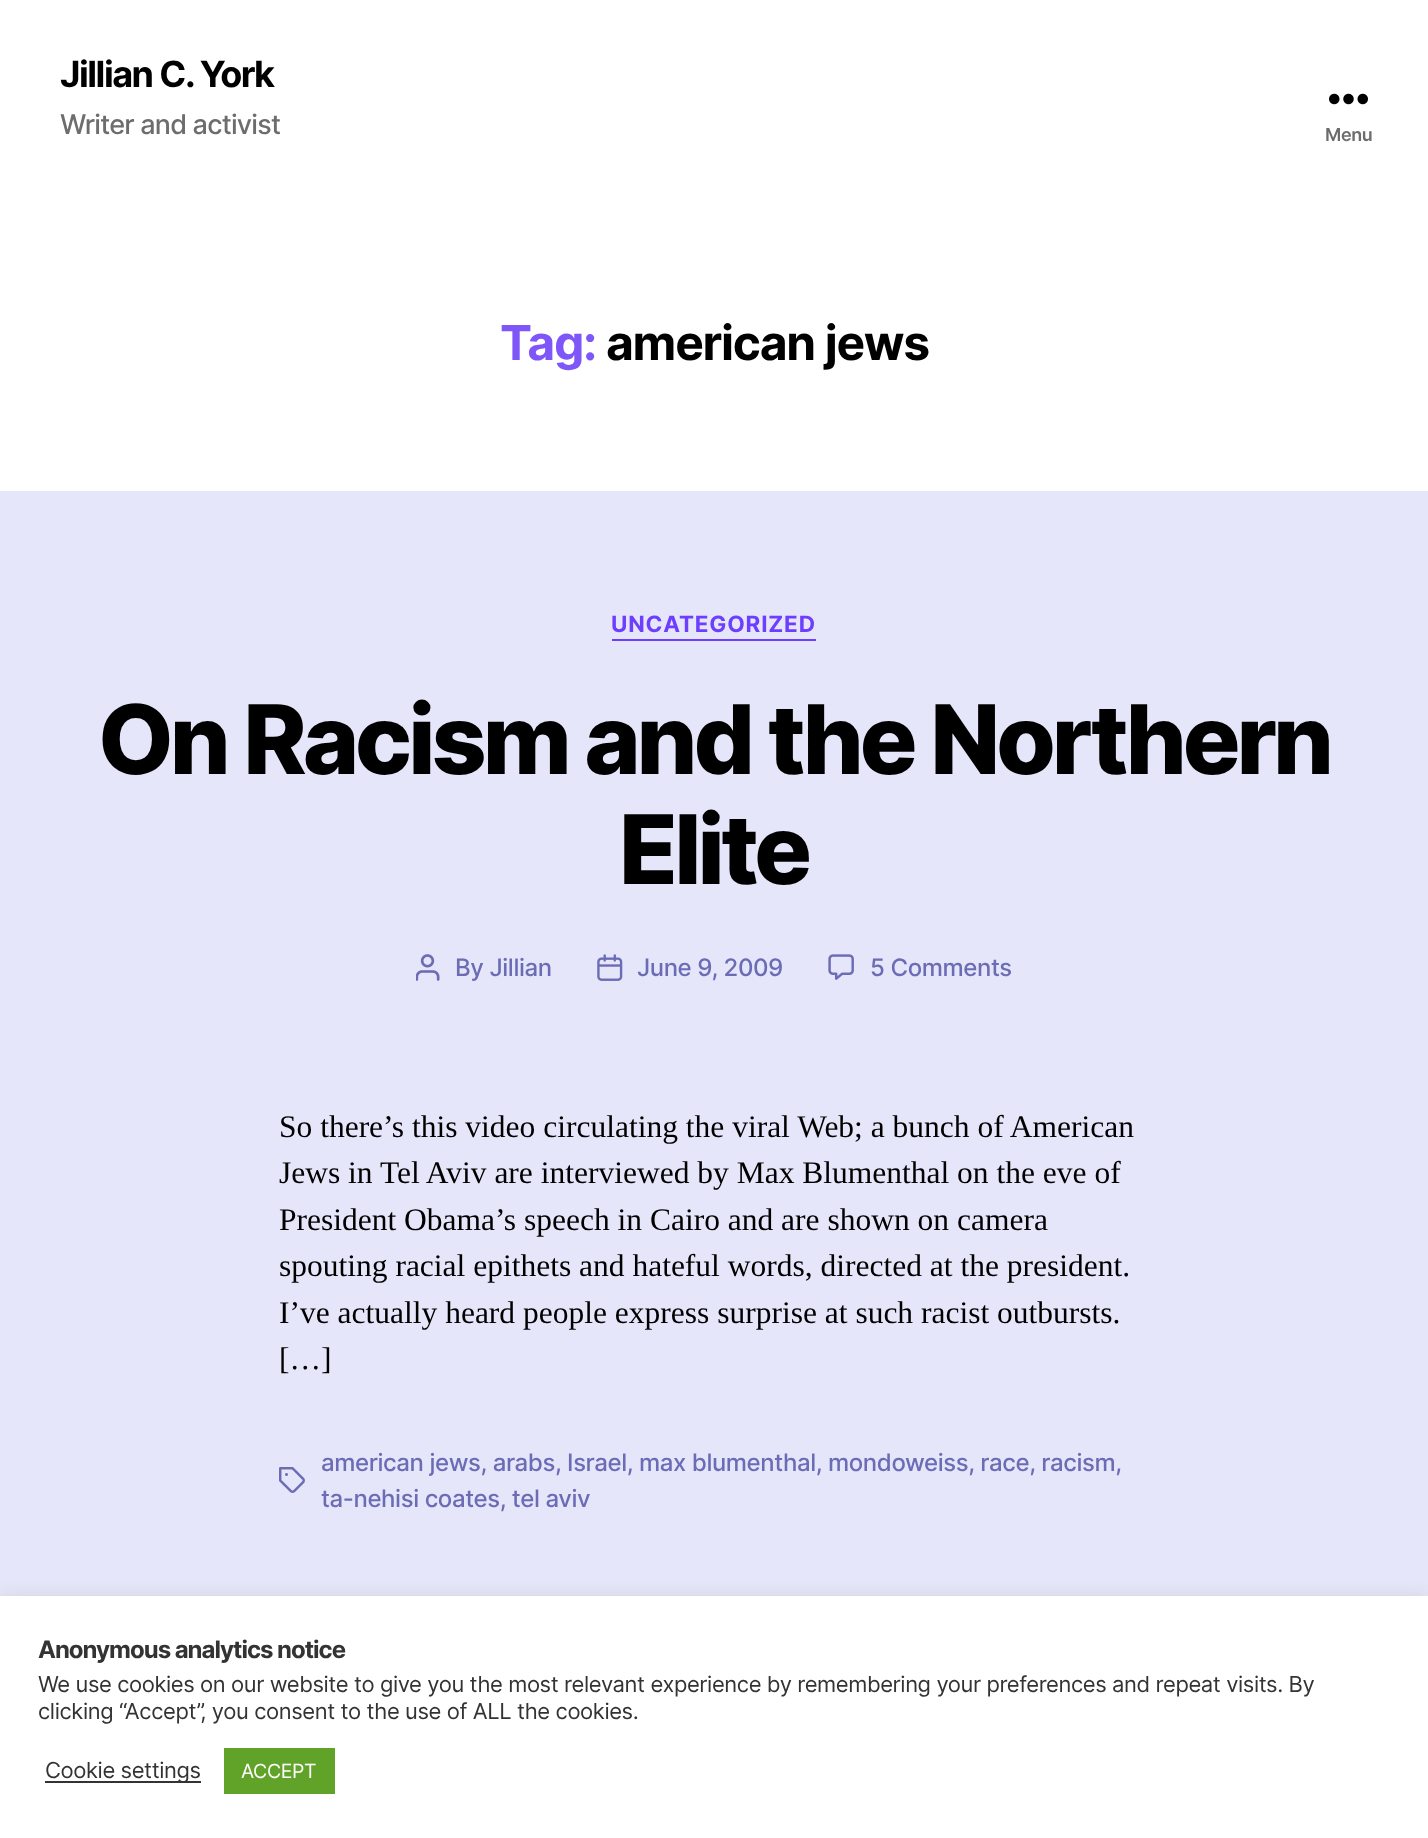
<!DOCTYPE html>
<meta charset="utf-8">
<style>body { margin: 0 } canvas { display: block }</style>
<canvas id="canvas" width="1428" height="1838"></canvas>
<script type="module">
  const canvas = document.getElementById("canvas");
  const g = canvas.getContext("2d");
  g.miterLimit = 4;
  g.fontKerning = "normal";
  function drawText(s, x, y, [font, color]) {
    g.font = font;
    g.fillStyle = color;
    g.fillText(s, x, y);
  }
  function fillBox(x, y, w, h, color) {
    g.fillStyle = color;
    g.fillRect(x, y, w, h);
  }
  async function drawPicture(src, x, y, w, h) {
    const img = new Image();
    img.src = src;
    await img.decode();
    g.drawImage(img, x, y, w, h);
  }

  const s1 = ["bold 36px Inter", "#000000"];
  const s2 = ["500 27px Inter", "#6D6D6D"];
  const s3 = ["600 18px Inter", "#6D6D6D"];
  const s4 = ["bold 48px Inter", "#7F57F8"];
  const s5 = ["bold 48px Inter", "#000000"];
  const s6 = ["bold 22.5px Inter", "#6E3EFE"];
  const s7 = ["800 96px Inter", "#000000"];
  const s8 = ["500 24px Inter", "#6C6CB6"];
  const s9 = ["31.5px Liberation Serif", "#000000"];
  const s10 = ["bold 24px Inter", "#333333"];
  const s11 = ["22px Inter", "#333333"];
  const s12 = ["19.5px Inter", "#FFFFFF"];

  fillBox(0, 0, 1428, 1838, "#E6E6FA");
  fillBox(0, 0, 1428, 491, "#FFFFFF");
  g.letterSpacing = "-1.5px";
  drawText("Jillian C. York", 60, 87, s1);
  g.letterSpacing = "-0.8px";
  drawText("Writer and activist", 60, 134, s2);
  await drawPicture("pic1.png", 1329, 93, 39, 12);
  g.letterSpacing = "-0.41px";
  drawText("Menu", 1325, 141, s3);
  g.letterSpacing = "-1.25px";
  drawText("Tag:", 500, 360, s4);
  drawText("american jews", 606, 360, s5);
  fillBox(612, 639, 204, 2, "#6E3EFE");
  g.letterSpacing = "0.8px";
  drawText("UNCATEGORIZED", 611, 632, s6);
  g.letterSpacing = "-4px";
  drawText("On Racism and the Northern", 98, 774, s7);
  drawText("Elite", 619, 884, s7);
  await drawPicture("pic2.png", 416, 954, 24, 27);
  g.letterSpacing = "-0.41px";
  drawText("By Jillian", 455, 976, s8);
  await drawPicture("pic3.png", 597, 954, 26, 27);
  drawText("June 9, 2009", 637, 976, s8);
  await drawPicture("pic4.png", 828, 954, 26, 26);
  drawText("5 Comments", 870, 976, s8);
  g.letterSpacing = "0px";
  drawText("So there’s this video circulating the viral Web; a bunch of American", 279, 1137, s9);
  drawText("Jews in Tel Aviv are interviewed by Max Blumenthal on the eve of", 279, 1183, s9);
  drawText("President Obama’s speech in Cairo and are shown on camera", 279, 1230, s9);
  drawText("spouting racial epithets and hateful words, directed at the president.", 279, 1276, s9);
  drawText("I’ve actually heard people express surprise at such racist outbursts.", 279, 1323, s9);
  drawText("[…]", 279, 1369, s9);
  await drawPicture("pic5.png", 279, 1467, 26, 26);
  g.letterSpacing = "-0.41px";
  drawText("american jews, arabs, Israel, max blumenthal, mondoweiss, race, racism,", 321, 1471, s8);
  drawText("ta-nehisi coates, tel aviv", 321, 1507, s8);
  g.fillStyle = "rgba(172, 171, 171, 0.3)";
  g.filter = "blur(7.5px)";
  g.beginPath();
  g.rect(0, 1595, 1428, 243);
  g.fill();
  g.filter = "none";
  fillBox(0, 1596, 1428, 242, "#FFFFFF");
  g.letterSpacing = "-1px";
  drawText("Anonymous analytics notice", 38, 1658, s10);
  g.letterSpacing = "-0.41px";
  drawText("We use cookies on our website to give you the most relevant experience by remembering your preferences and repeat visits. By", 38, 1692, s11);
  drawText("clicking “Accept”, you consent to the use of ALL the cookies.", 38, 1719, s11);
  fillBox(45, 1781, 156, 2, "#333333");
  drawText("Cookie settings", 45, 1778, s11);
  fillBox(224, 1748, 111, 46, "#61A229");
  drawText("ACCEPT", 241, 1778, s12);
</script>
